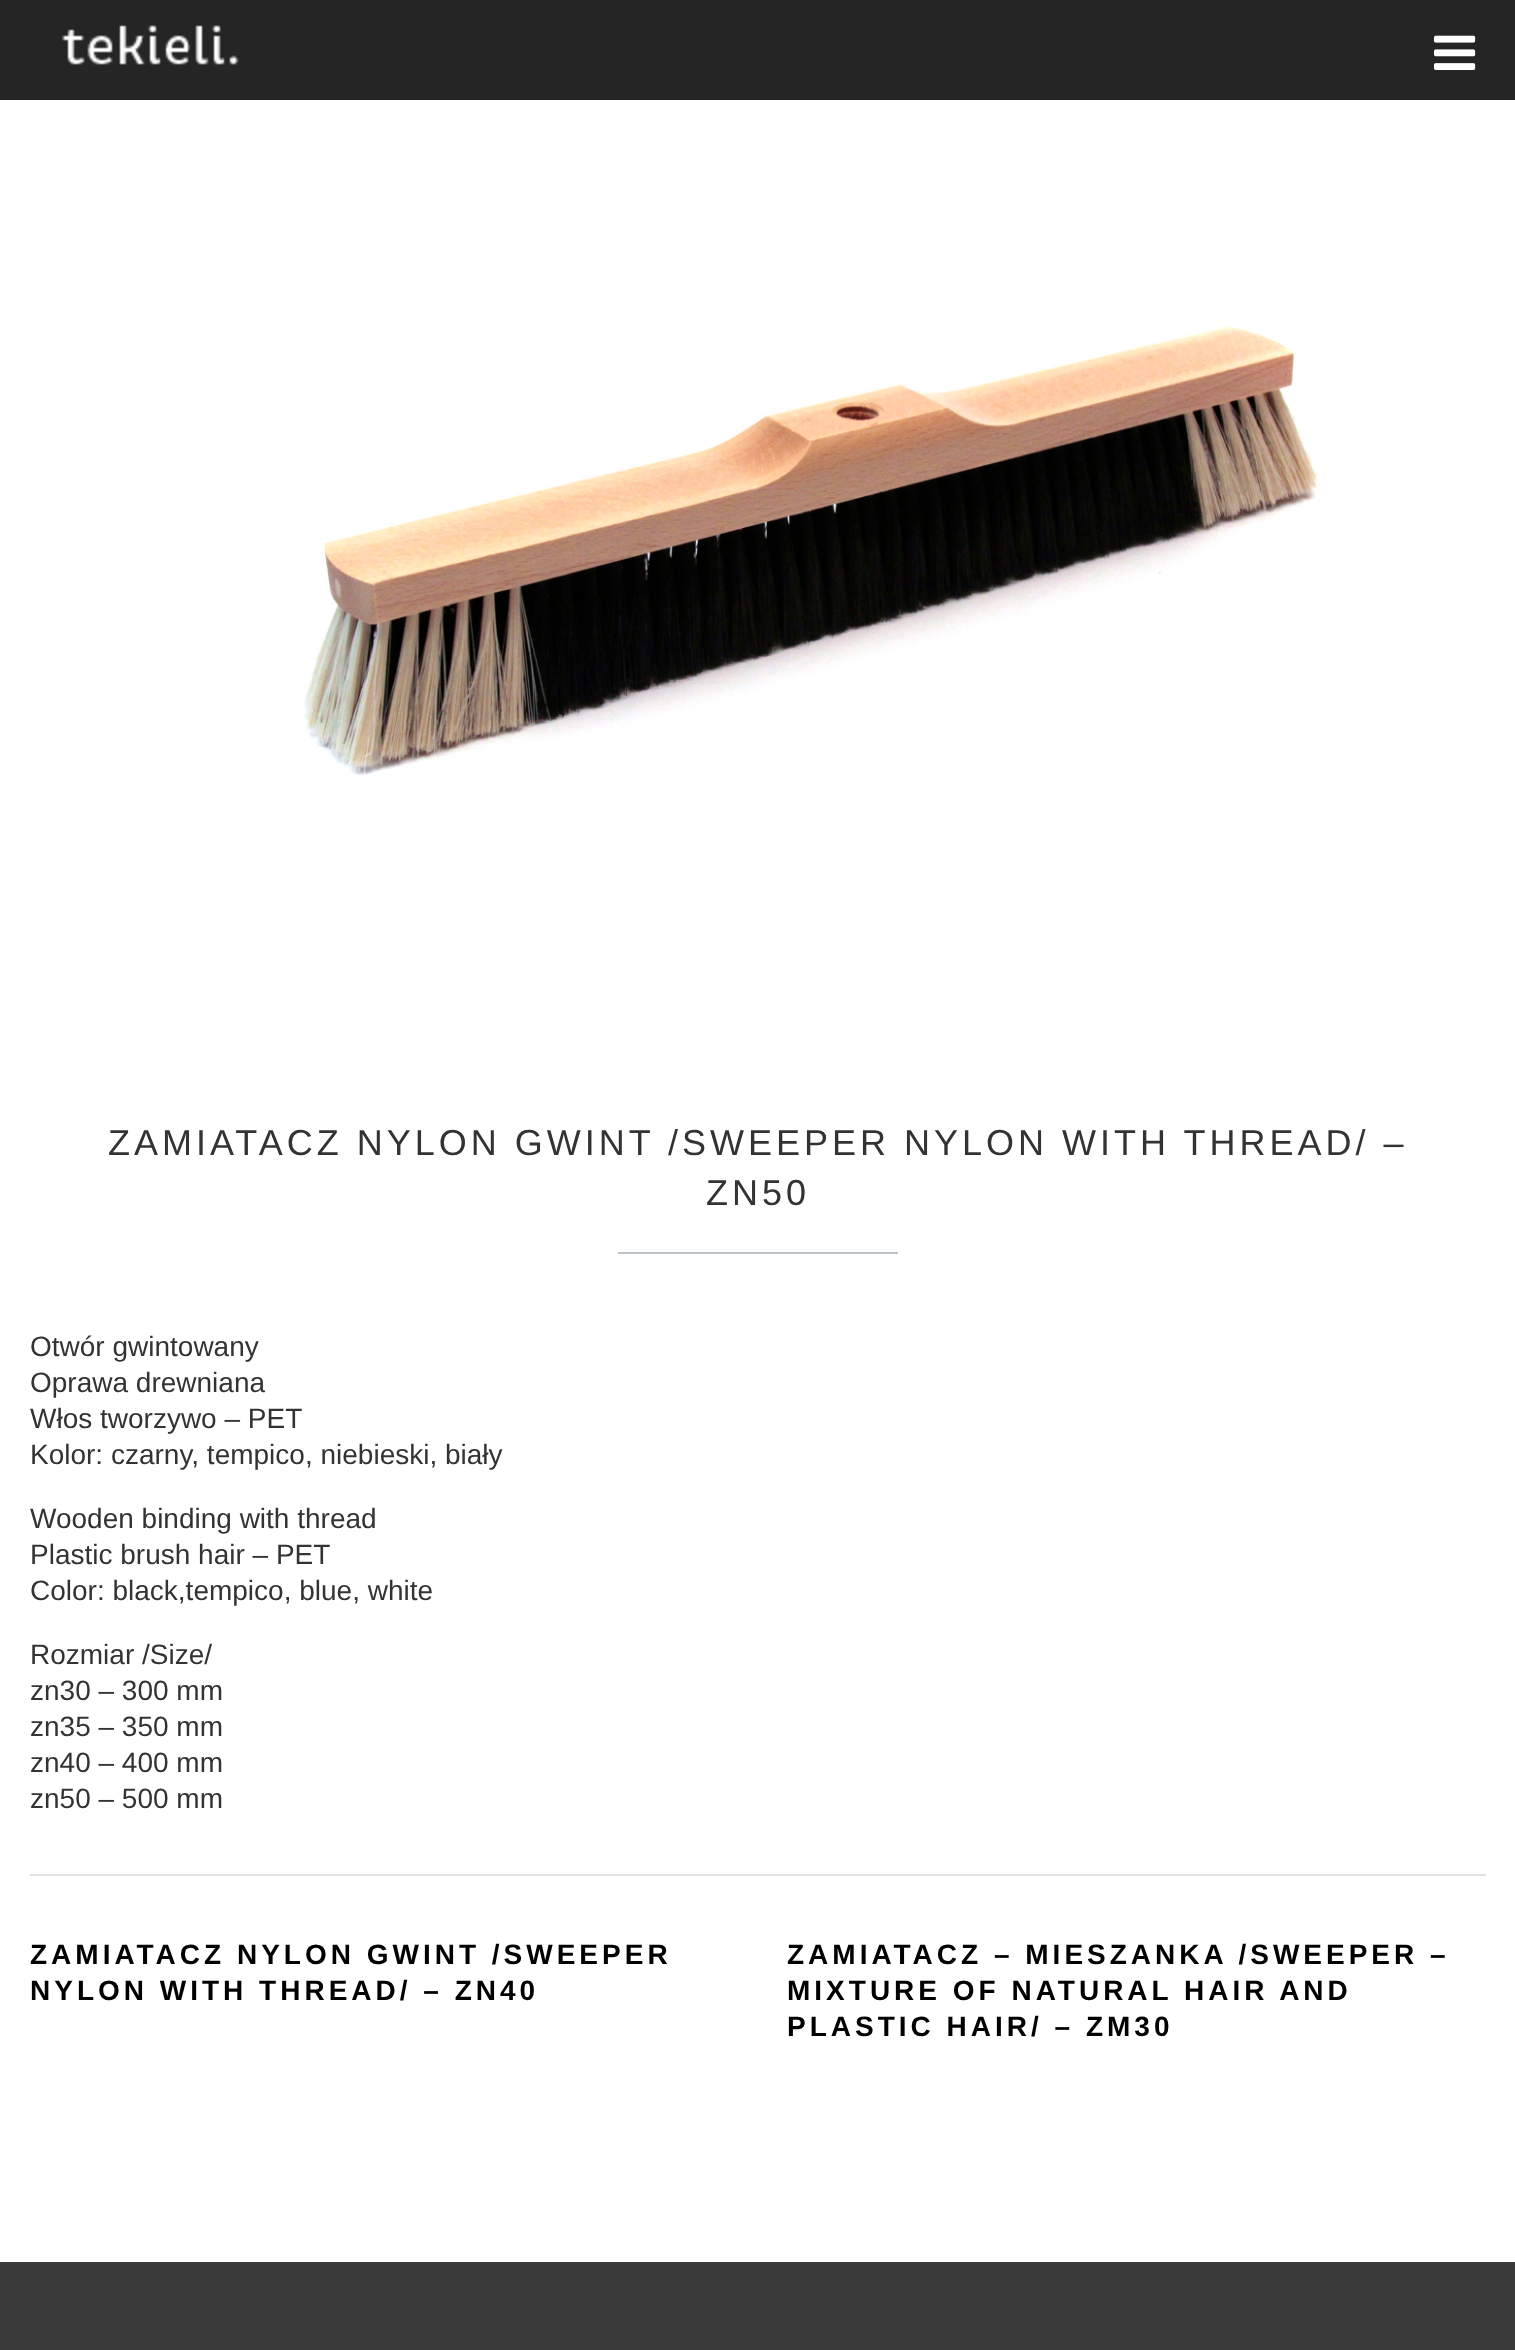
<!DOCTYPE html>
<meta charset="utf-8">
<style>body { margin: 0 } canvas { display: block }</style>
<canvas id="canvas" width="1515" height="2350"></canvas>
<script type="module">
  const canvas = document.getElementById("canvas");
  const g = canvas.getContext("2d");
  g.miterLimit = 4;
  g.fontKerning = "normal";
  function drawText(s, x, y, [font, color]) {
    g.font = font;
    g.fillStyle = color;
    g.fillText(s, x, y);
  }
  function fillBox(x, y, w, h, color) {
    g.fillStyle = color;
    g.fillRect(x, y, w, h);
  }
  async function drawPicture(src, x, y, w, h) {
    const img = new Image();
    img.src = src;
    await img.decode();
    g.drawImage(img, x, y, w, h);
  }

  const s1 = ["36px Liberation Sans", "#333333"];
  const s2 = ["28px Liberation Sans", "#333333"];
  const s3 = ["bold 28px Liberation Sans", "#000000"];

  fillBox(0, 0, 1515, 2350, "#FFFFFF");
  fillBox(0, 0, 1515, 100, "#252525");
  await drawPicture("pic1.png", 61, 25, 178, 40);
  await drawPicture("pic2.png", 1434, 35, 42, 35);
  await drawPicture("pic3.png", 304, 326, 1015, 449);
  g.letterSpacing = "4px";
  drawText("ZAMIATACZ NYLON GWINT /SWEEPER NYLON WITH THREAD/ –", 108, 1155, s1);
  drawText("ZN50", 706, 1205, s1);
  fillBox(618, 1252, 280, 2, "#BDC3C7");
  g.letterSpacing = "0px";
  drawText("Otwór gwintowany", 30, 1356, s2);
  drawText("Oprawa drewniana", 30, 1392, s2);
  drawText("Włos tworzywo – PET", 30, 1428, s2);
  drawText("Kolor: czarny, tempico, niebieski, biały", 30, 1464, s2);
  drawText("Wooden binding with thread", 30, 1528, s2);
  drawText("Plastic brush hair – PET", 30, 1564, s2);
  drawText("Color: black,tempico, blue, white", 30, 1600, s2);
  drawText("Rozmiar /Size/", 30, 1664, s2);
  drawText("zn30 – 300 mm", 30, 1700, s2);
  drawText("zn35 – 350 mm", 30, 1736, s2);
  drawText("zn40 – 400 mm", 30, 1772, s2);
  drawText("zn50 – 500 mm", 30, 1808, s2);
  fillBox(30, 1874, 1456, 2, "#E4E2E5");
  g.letterSpacing = "4px";
  drawText("ZAMIATACZ NYLON GWINT /SWEEPER", 30, 1964, s3);
  drawText("NYLON WITH THREAD/ – ZN40", 30, 2000, s3);
  drawText("ZAMIATACZ – MIESZANKA /SWEEPER –", 787, 1964, s3);
  drawText("MIXTURE OF NATURAL HAIR AND", 787, 2000, s3);
  drawText("PLASTIC HAIR/ – ZM30", 787, 2036, s3);
  fillBox(0, 2262, 1515, 88, "#3A3A3A");
</script>
